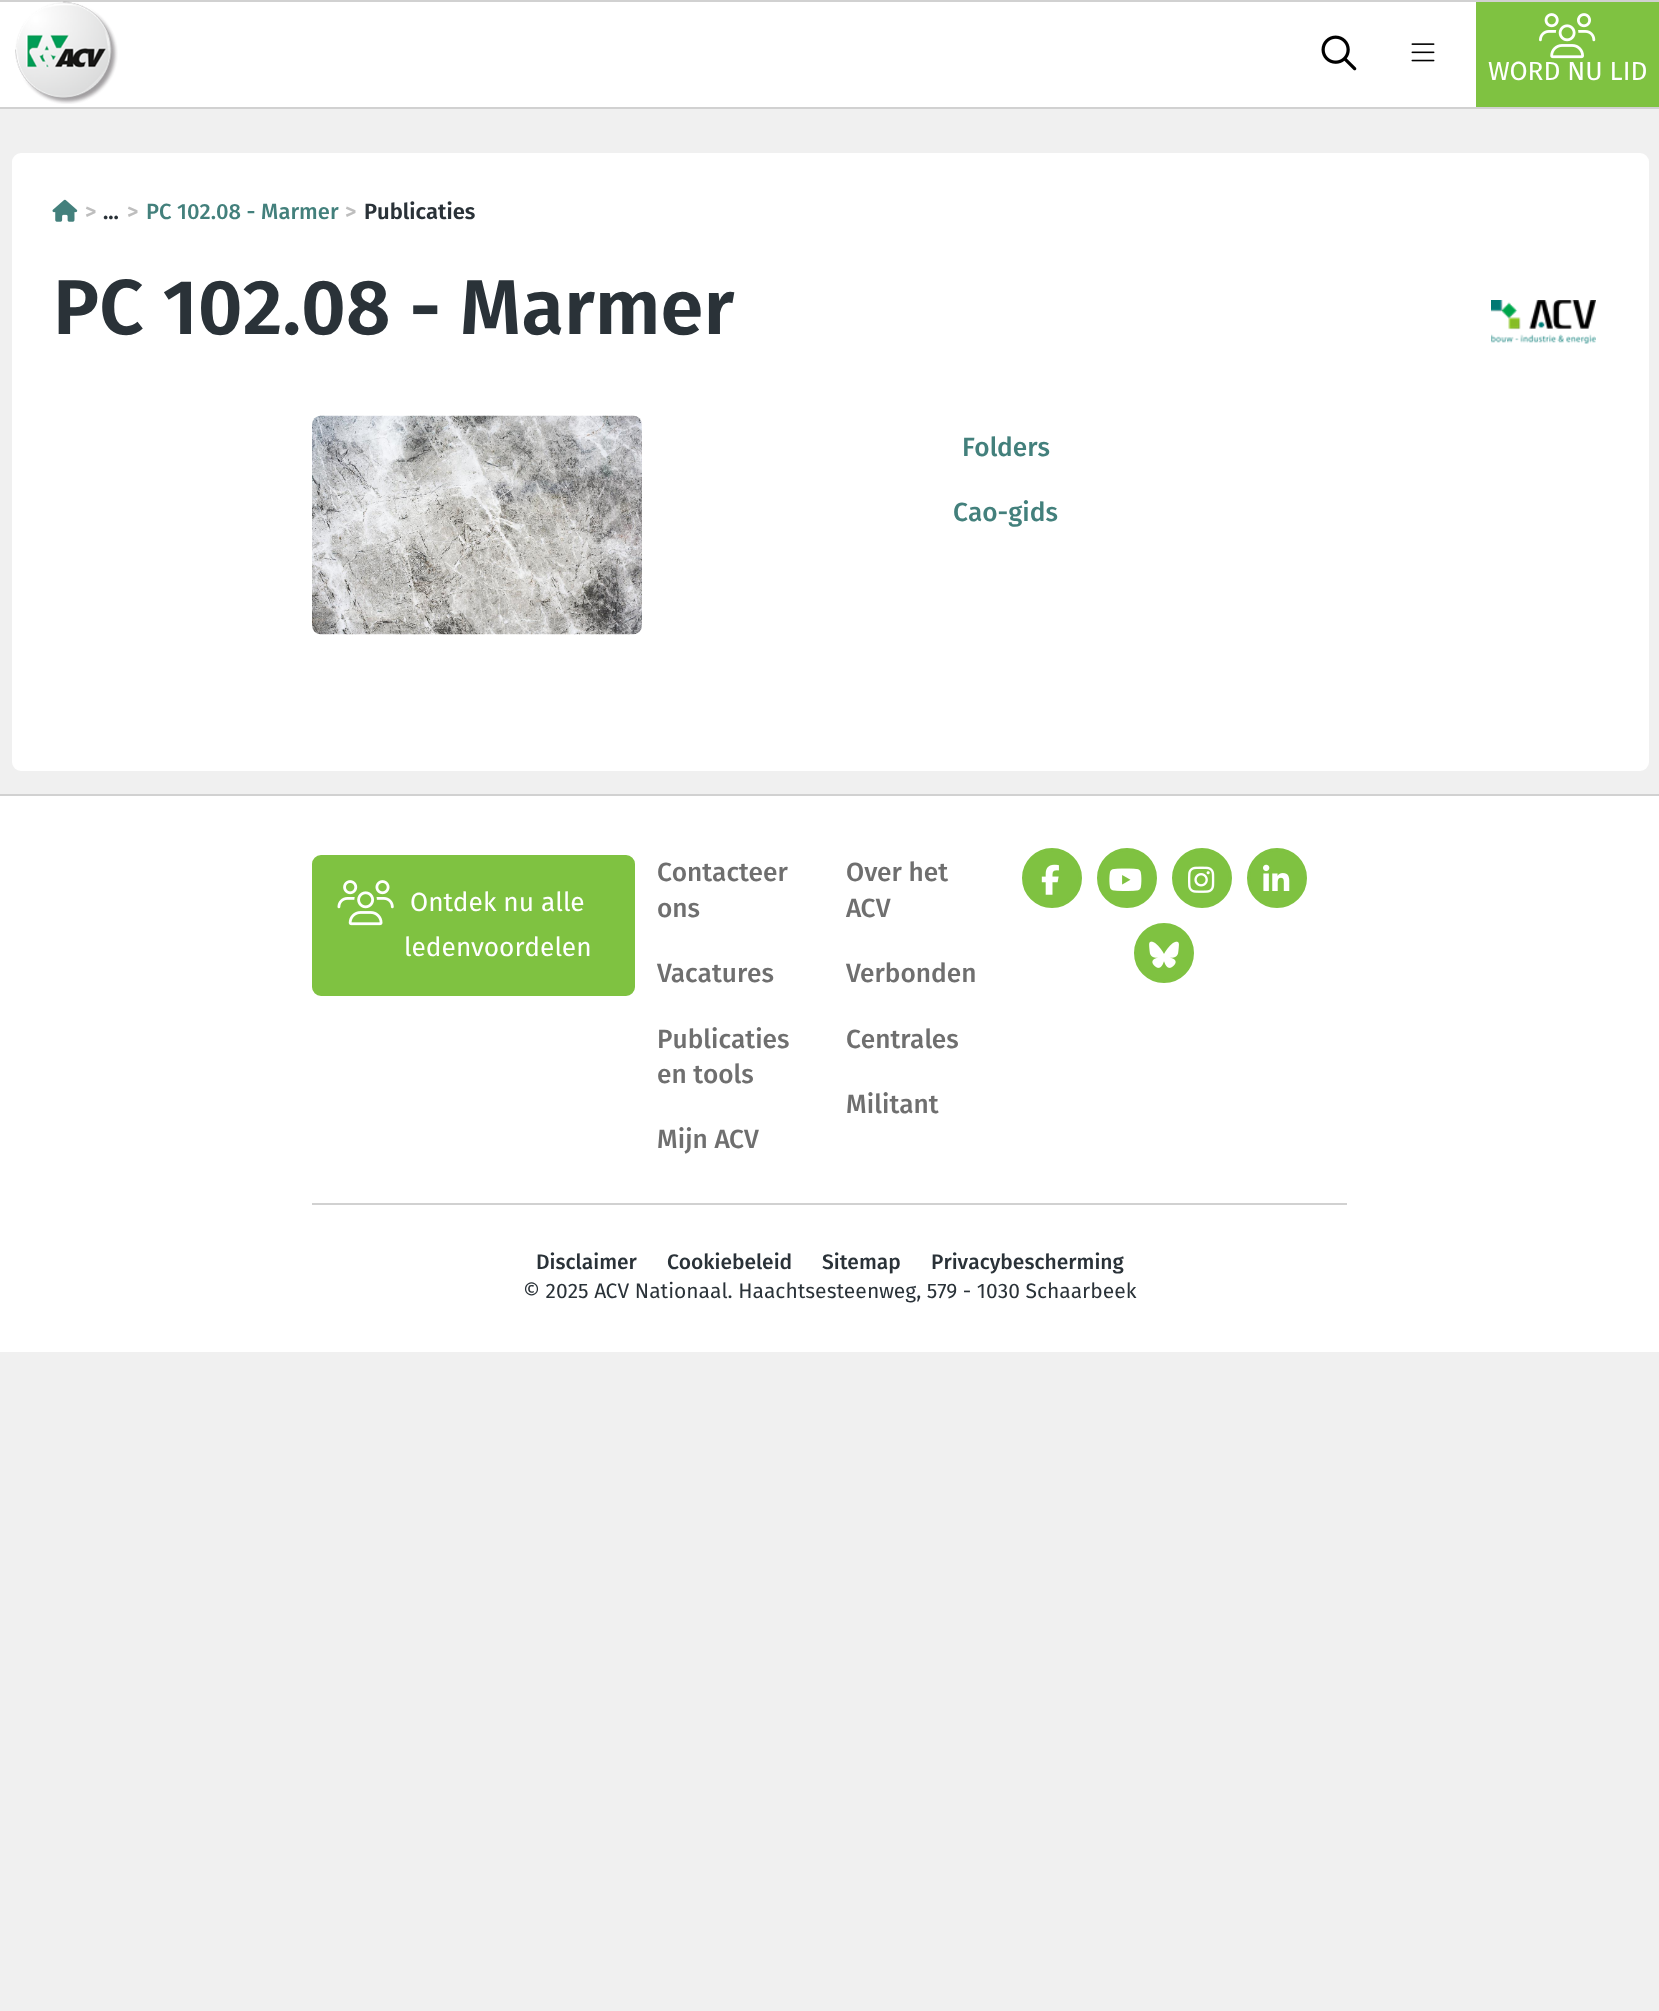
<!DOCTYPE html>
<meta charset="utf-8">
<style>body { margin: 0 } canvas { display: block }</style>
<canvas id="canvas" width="1659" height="2011"></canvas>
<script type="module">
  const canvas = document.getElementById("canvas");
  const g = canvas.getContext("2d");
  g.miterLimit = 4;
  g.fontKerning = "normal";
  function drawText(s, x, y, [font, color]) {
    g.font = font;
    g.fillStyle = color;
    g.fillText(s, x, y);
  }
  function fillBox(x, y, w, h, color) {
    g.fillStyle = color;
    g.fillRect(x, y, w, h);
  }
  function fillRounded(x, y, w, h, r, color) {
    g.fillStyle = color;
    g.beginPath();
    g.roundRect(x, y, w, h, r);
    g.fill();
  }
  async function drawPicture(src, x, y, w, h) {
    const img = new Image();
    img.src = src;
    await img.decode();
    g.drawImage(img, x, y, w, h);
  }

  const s1 = ["26.25px Fira Sans", "#FFFFFF"];
  const s2 = ["600 22px Fira Sans", "#BEBEBE"];
  const s3 = ["600 22px Fira Sans", "#2A3238"];
  const s4 = ["500 22px Fira Sans", "#43807C"];
  const s5 = ["600 77.6px Fira Sans", "#2A3238"];
  const s6 = ["500 26.25px Fira Sans", "#43807C"];
  const s7 = ["500 26.25px Fira Sans", "#6F6F6F"];
  const s8 = ["500 21px Fira Sans", "#2A3238"];
  const s9 = ["21px Fira Sans", "#2A3238"];

  fillBox(0, 0, 1659, 2011, "#F0F0F0");
  fillBox(0, 2, 1476, 105, "#FFFFFF");
  fillBox(0, 107, 1659, 2, "#D1D1D1");
  fillBox(0, 0, 1659, 2, "#D1D1D1");
  await drawPicture("pic1.png", 15, 1, 103, 103);
  await drawPicture("pic2.png", 1321, 35, 36, 36);
  await drawPicture("pic3.png", 1411, 43, 24, 19);
  fillBox(1476, 2, 183, 105, "#7FC241");
  await drawPicture("pic4.png", 1539, 13, 57, 46);
  drawText("WORD NU LID", 1488, 80, s1);
  fillRounded(12, 153, 1637, 618, 9, "#FFFFFF");
  await drawPicture("pic5.png", 52, 199, 26, 23);
  drawText(">", 85, 219, s2);
  drawText("...", 103, 219, s3);
  drawText(">", 127, 219, s2);
  drawText("PC 102.08 - Marmer", 146, 219, s4);
  drawText(">", 345, 219, s2);
  drawText("Publicaties", 364, 219, s3);
  drawText("PC 102.08 - Marmer", 53, 334, s5);
  await drawPicture("pic6.png", 1491, 300, 105, 44);
  await drawPicture("pic7.png", 312, 415, 330, 220);
  drawText("Folders", 962, 456, s6);
  drawText("Cao-gids", 953, 521, s6);
  fillBox(0, 796, 1659, 556, "#FFFFFF");
  fillBox(0, 794, 1659, 2, "#D1D1D1");
  g.fillStyle = "#7FC241";
  g.beginPath();
  g.roundRect(313.5, 856.5, 320, 138, 7.5);
  g.fill();
  g.strokeStyle = "#7FC241";
  g.lineWidth = 3;
  g.stroke();
  await drawPicture("pic8.png", 337, 880, 57, 46);
  drawText("Ontdek nu alle", 410, 911, s1);
  drawText("ledenvoordelen", 404, 956, s1);
  drawText("Contacteer", 657, 881, s7);
  drawText("ons", 657, 917, s7);
  drawText("Over het", 846, 881, s7);
  drawText("ACV", 846, 917, s7);
  drawText("Vacatures", 657, 982, s7);
  drawText("Verbonden", 846, 982, s7);
  drawText("Publicaties", 657, 1048, s7);
  drawText("en tools", 657, 1083, s7);
  drawText("Centrales", 846, 1048, s7);
  drawText("Militant", 846, 1113, s7);
  drawText("Mijn ACV", 657, 1148, s7);
  g.fillStyle = "#7FC241";
  g.beginPath();
  g.arc(1052, 878, 28.5, 0, Math.PI * 2);
  g.fill();
  g.stroke();
  await drawPicture("pic9.png", 1041, 864, 18, 31);
  g.beginPath();
  g.arc(1127, 878, 28.5, 0, Math.PI * 2);
  g.fill();
  g.stroke();
  await drawPicture("pic10.png", 1109, 868, 33, 23);
  g.beginPath();
  g.arc(1202, 878, 28.5, 0, Math.PI * 2);
  g.fill();
  g.stroke();
  await drawPicture("pic11.png", 1188, 866, 27, 27);
  g.beginPath();
  g.arc(1277, 878, 28.5, 0, Math.PI * 2);
  g.fill();
  g.stroke();
  await drawPicture("pic12.png", 1263, 864, 27, 27);
  g.beginPath();
  g.arc(1164, 953, 28.5, 0, Math.PI * 2);
  g.fill();
  g.stroke();
  await drawPicture("pic13.png", 1149, 941, 30, 27);
  fillBox(312, 1203, 1035, 2, "#D1D1D1");
  drawText("Disclaimer", 536, 1269, s8);
  drawText("Cookiebeleid", 667, 1269, s8);
  drawText("Sitemap", 822, 1269, s8);
  drawText("Privacybescherming", 931, 1269, s8);
  drawText("© 2025 ACV Nationaal. Haachtsesteenweg, 579 - 1030 Schaarbeek", 523, 1298, s9);
</script>
